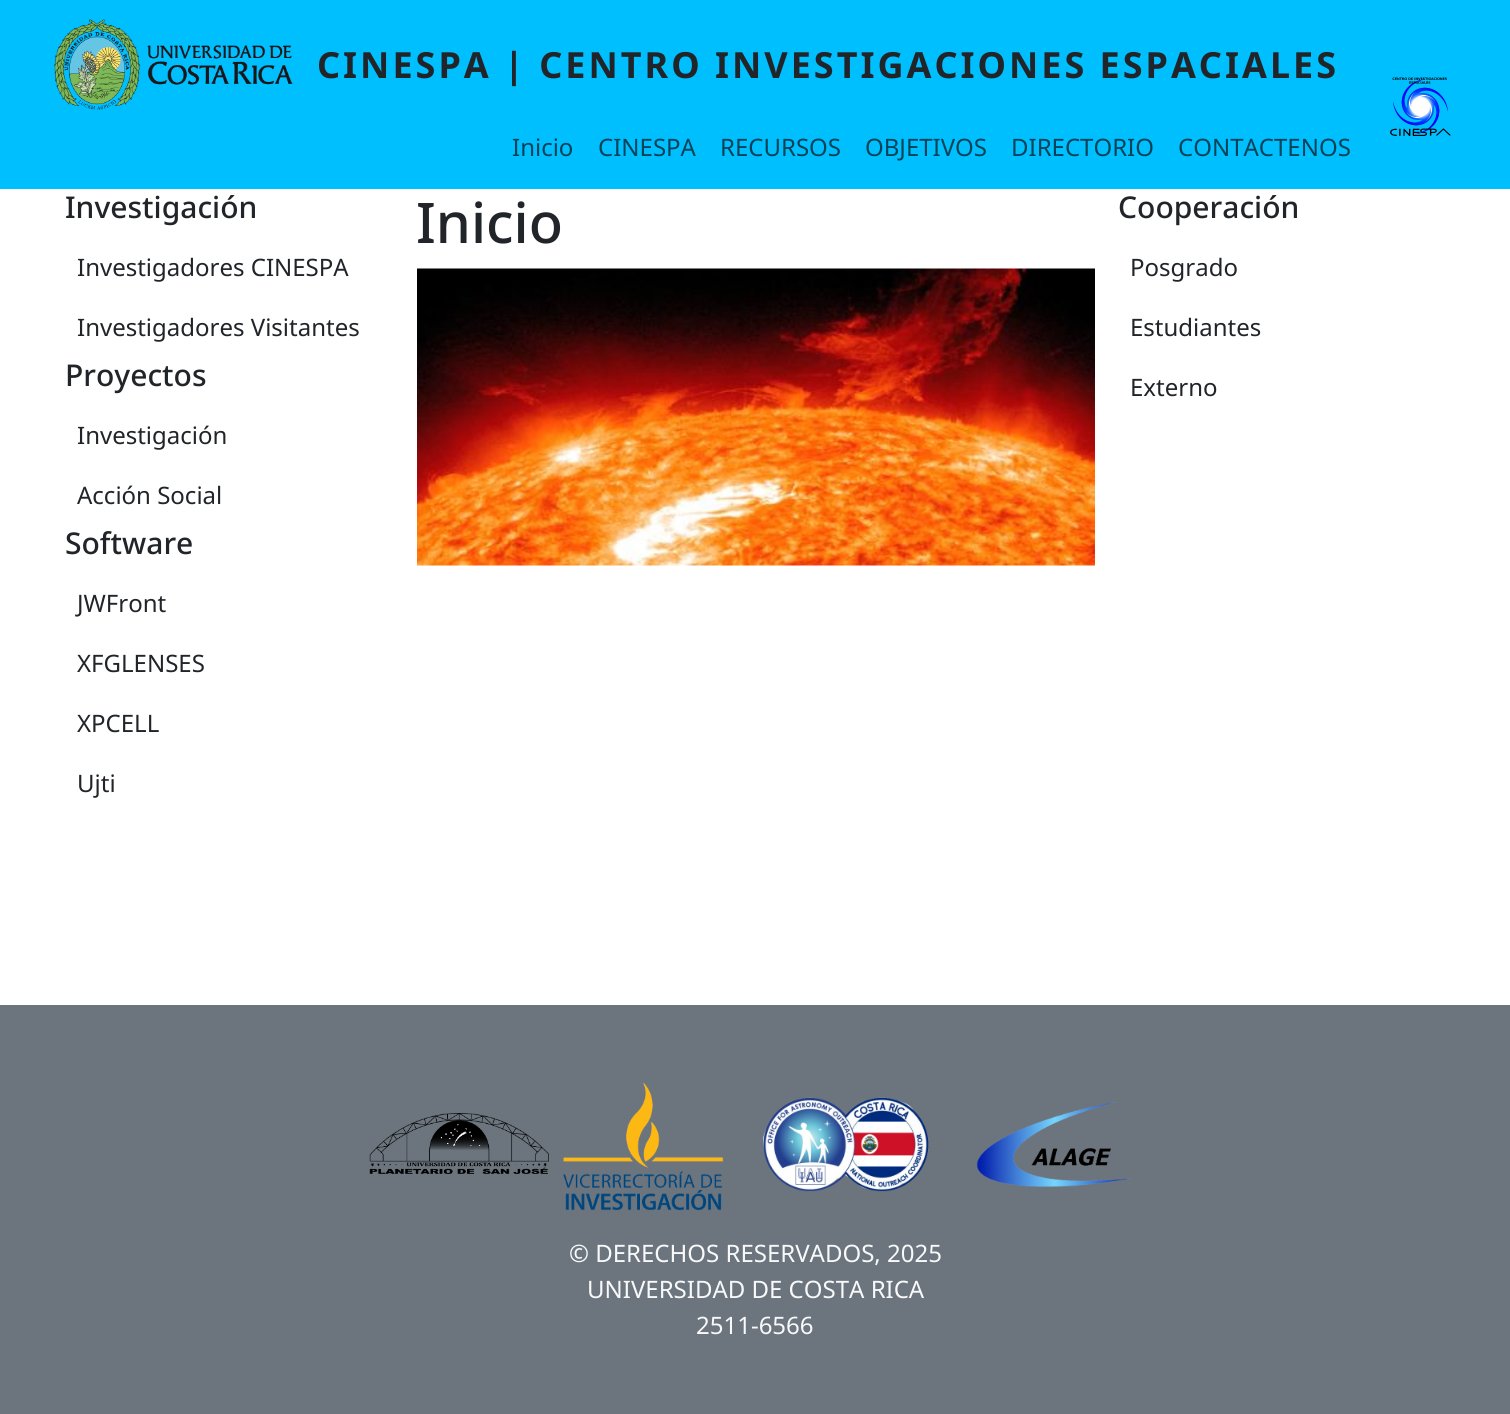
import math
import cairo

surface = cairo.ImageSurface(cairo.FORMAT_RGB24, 1510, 1414)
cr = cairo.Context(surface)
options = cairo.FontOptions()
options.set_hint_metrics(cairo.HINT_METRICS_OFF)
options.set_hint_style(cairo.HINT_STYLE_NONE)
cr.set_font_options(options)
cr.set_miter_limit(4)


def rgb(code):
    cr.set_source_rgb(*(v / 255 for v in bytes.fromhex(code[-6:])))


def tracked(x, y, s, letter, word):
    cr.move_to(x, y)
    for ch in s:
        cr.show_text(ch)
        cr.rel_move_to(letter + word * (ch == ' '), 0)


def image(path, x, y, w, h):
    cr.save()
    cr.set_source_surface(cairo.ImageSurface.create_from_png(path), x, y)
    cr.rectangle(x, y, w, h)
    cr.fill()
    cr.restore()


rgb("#ffffff")
cr.paint()
rgb("#00bfff")
cr.rectangle(0, 0, 1510, 189)
cr.fill()
image("img/1.png", 54, 19, 239, 91)
image("img/2.png", 1390, 77, 61, 59)
image("img/3.png", 417, 268, 678, 298)
rgb("#6c757d")
cr.rectangle(0, 1005, 1510, 409)
cr.fill()
image("img/4.png", 369, 1113, 180, 61)
image("img/5.png", 563, 1082, 161, 129)
image("img/6.png", 763, 1097, 166, 95)
image("img/7.png", 976, 1101, 155, 86)
cr.select_font_face("Noto Sans", cairo.FONT_SLANT_NORMAL, cairo.FONT_WEIGHT_BOLD)
cr.set_font_size(36)
rgb("#212529")
tracked(317, 78, "CINESPA | CENTRO INVESTIGACIONES ESPACIALES", 3, 0)
cr.select_font_face("Noto Sans")
cr.set_font_size(24)
rgb("#004359")
for x, y, s in [
    (512, 156, "Inicio"),
    (598, 156, "CINESPA"),
    (720, 156, "RECURSOS"),
    (865, 156, "OBJETIVOS"),
    (1011, 156, "DIRECTORIO"),
    (1178, 156, "CONTACTENOS"),
]:
    cr.move_to(x, y)
    cr.show_text(s)
cr.select_font_face("Noto Sans Medium")
cr.set_font_size(30)
rgb("#212529")
cr.move_to(65, 218)
cr.show_text("Investigación")
cr.select_font_face("Noto Sans")
cr.set_font_size(24)
cr.move_to(77, 276)
cr.show_text("Investigadores CINESPA")
cr.move_to(77, 336)
cr.show_text("Investigadores Visitantes")
cr.select_font_face("Noto Sans Medium")
cr.set_font_size(30)
cr.move_to(65, 386)
cr.show_text("Proyectos")
cr.select_font_face("Noto Sans")
cr.set_font_size(24)
cr.move_to(77, 444)
cr.show_text("Investigación")
cr.move_to(77, 504)
cr.show_text("Acción Social")
cr.select_font_face("Noto Sans Medium")
cr.set_font_size(30)
cr.move_to(65, 554)
cr.show_text("Software")
cr.select_font_face("Noto Sans")
cr.set_font_size(24)
for x, y, s in [
    (77, 612, "JWFront"),
    (77, 672, "XFGLENSES"),
    (77, 732, "XPCELL"),
    (77, 792, "Ujti"),
]:
    cr.move_to(x, y)
    cr.show_text(s)
cr.select_font_face("Noto Sans Medium")
cr.set_font_size(56)
cr.move_to(416, 243)
cr.show_text("Inicio")
cr.set_font_size(30)
cr.move_to(1118, 218)
cr.show_text("Cooperación")
cr.select_font_face("Noto Sans")
cr.set_font_size(24)
for x, y, s in [
    (1130, 276, "Posgrado"),
    (1130, 336, "Estudiantes"),
    (1130, 396, "Externo"),
]:
    cr.move_to(x, y)
    cr.show_text(s)
rgb("#f8f9fa")
for x, y, s in [
    (569, 1262, "© DERECHOS RESERVADOS, 2025"),
    (587, 1298, "UNIVERSIDAD DE COSTA RICA"),
    (696, 1334, "2511-6566"),
]:
    cr.move_to(x, y)
    cr.show_text(s)
surface.write_to_png("page.png")
